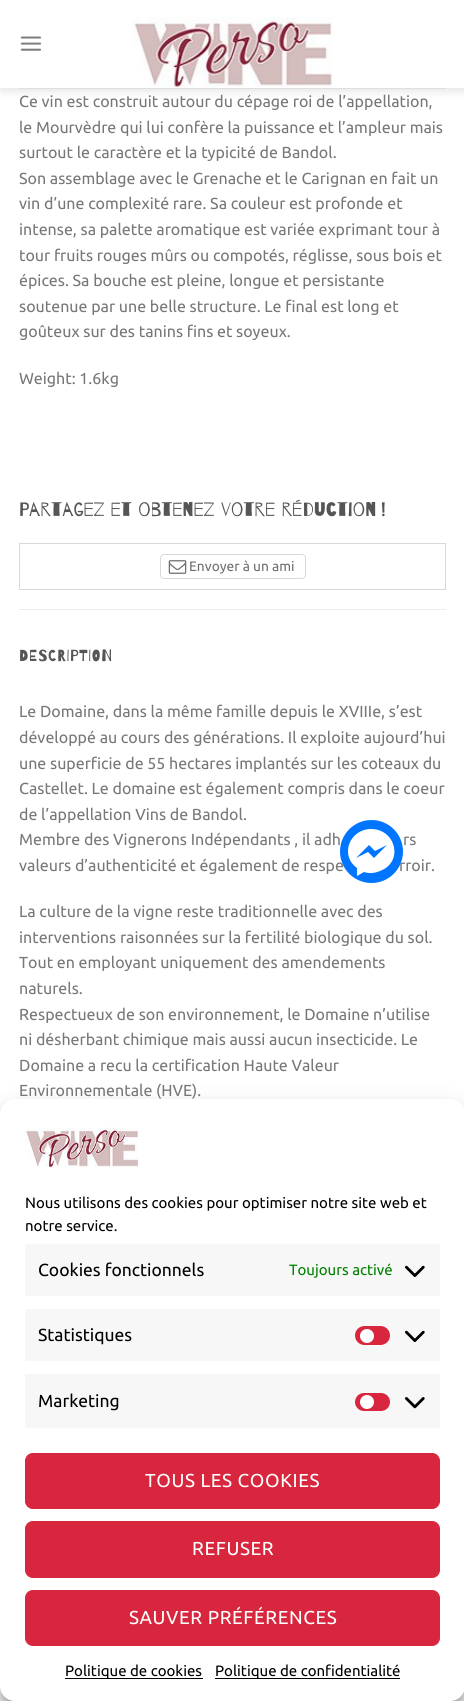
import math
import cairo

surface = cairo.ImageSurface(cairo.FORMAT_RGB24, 464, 1701)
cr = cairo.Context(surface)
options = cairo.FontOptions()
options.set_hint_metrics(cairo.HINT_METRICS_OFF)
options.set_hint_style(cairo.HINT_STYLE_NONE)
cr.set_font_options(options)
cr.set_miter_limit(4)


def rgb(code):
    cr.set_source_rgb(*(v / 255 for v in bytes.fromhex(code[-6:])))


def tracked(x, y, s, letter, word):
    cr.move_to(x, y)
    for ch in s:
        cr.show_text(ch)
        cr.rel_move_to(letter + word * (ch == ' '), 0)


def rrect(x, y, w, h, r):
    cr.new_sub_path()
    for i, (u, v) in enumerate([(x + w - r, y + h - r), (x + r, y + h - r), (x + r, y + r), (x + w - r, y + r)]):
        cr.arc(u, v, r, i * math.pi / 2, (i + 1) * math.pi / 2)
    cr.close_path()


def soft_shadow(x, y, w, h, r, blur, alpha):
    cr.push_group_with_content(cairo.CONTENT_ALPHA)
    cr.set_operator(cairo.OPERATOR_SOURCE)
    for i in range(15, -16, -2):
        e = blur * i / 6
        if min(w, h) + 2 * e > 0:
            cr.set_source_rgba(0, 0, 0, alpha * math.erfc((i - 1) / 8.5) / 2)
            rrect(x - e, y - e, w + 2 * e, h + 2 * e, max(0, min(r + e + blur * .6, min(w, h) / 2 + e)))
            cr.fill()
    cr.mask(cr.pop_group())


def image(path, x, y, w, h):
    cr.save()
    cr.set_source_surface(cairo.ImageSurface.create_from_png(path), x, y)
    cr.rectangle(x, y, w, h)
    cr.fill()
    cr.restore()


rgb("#ffffff")
cr.paint()
rgb("#000000")
soft_shadow(1, 1, 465, 88, 0, 6, 0.15)
rgb("#ffffff")
cr.rectangle(0, 0, 464, 88)
cr.fill()
image("img/1.png", 20, 36, 21, 15)
image("img/2.png", 132, 17, 201, 71)
rgb("#dfdfdf")
cr.rectangle(19, 88, 427, 1)
cr.fill()
cr.rectangle(19.5, 543.5, 426, 46)
rgb("#dbd8d8")
cr.set_line_width(1)
cr.stroke()
rrect(160.5, 554.5, 145, 24, 3.5)
cr.stroke()
image("img/3.png", 168, 560, 19, 14)
rgb("#ececec")
cr.rectangle(19, 609, 427, 1)
cr.fill()
rgb("#000000")
soft_shadow(0, 1106, 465, 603, 15, 4, 0.23)
soft_shadow(0, 1111, 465, 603, 15, 12.5, 0.19)
rgb("#ffffff")
rrect(0, 1099, 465, 602, 15)
cr.fill()
image("img/4.png", 25, 1127, 113, 41)
rgb("#f7f7f7")
cr.rectangle(25, 1244, 415, 52)
cr.fill()
image("img/5.png", 405, 1265, 20, 12)
cr.rectangle(25, 1309, 415, 52)
cr.fill()
rgb("#d7263d")
rrect(355, 1326, 35, 19, 9.5)
cr.fill()
rgb("#ffffff")
cr.arc(367, 1336, 7, 0, 2 * math.pi)
cr.fill()
image("img/5.png", 405, 1330, 20, 12)
rgb("#f7f7f7")
cr.rectangle(25, 1374, 415, 54)
cr.fill()
rgb("#d7263d")
rrect(355, 1393, 35, 18, 9)
cr.fill()
rgb("#ffffff")
cr.arc(367, 1402, 7, 0, 2 * math.pi)
cr.fill()
image("img/6.png", 405, 1397, 20, 12)
rgb("#d7263d")
rrect(25.5, 1453.5, 414, 55, 7.5)
cr.fill_preserve()
cr.stroke()
rrect(25.5, 1521.5, 414, 56, 7.5)
cr.fill_preserve()
cr.stroke()
rrect(25.5, 1590.5, 414, 55, 7.5)
cr.fill_preserve()
cr.stroke()
rgb("#000000")
cr.rectangle(65, 1678, 138, 1)
cr.fill()
cr.rectangle(215, 1678, 185, 1)
cr.fill()
cr.select_font_face("Ubuntu")
cr.set_font_size(16)
rgb("#777777")
for x, y, s in [
    (19, 107, "Ce vin est construit autour du cépage roi de l’appellation,"),
    (19, 133, "le Mourvèdre qui lui confère la puissance et l’ampleur mais"),
    (19, 158, "surtout le caractère et la typicité de Bandol."),
    (19, 184, "Son assemblage avec le Grenache et le Carignan en fait un"),
    (19, 209, "vin d’une complexité rare. Sa couleur est profonde et"),
    (19, 235, "intense, sa palette aromatique est variée exprimant tour à"),
    (19, 261, "tour fruits rouges mûrs ou compotés, réglisse, sous bois et"),
    (19, 286, "épices. Sa bouche est pleine, longue et persistante"),
    (19, 312, "soutenue par une belle structure. Le final est long et"),
    (19, 337, "goûteux sur des tanins fins et soyeux."),
    (19, 384, "Weight: 1.6kg"),
]:
    cr.move_to(x, y)
    cr.show_text(s)
cr.select_font_face("Barrio")
cr.set_font_size(19.25)
rgb("#555555")
tracked(19, 516, "Partagez et obtenez votre réduction", 0, 0.75)
tracked(381, 516, "!", 0, 0.75)
cr.select_font_face("Ubuntu")
cr.set_font_size(13.75)
rgb("#6e6e6e")
cr.move_to(189, 571)
cr.show_text("Envoyer à un ami")
cr.select_font_face("Barrio")
cr.set_font_size(16)
rgb("#555555")
tracked(19, 661, "DESCRIPTION", 0.75, 0)
cr.select_font_face("Ubuntu")
rgb("#777777")
for x, y, s in [
    (19, 717, "Le Domaine, dans la même famille depuis le XVIIIe, s’est"),
    (19, 743, "développé au cours des générations. Il exploite aujourd’hui"),
    (19, 769, "une superficie de 55 hectares implantés sur les coteaux du"),
    (19, 794, "Castellet. Le domaine est également compris dans le coeur"),
    (19, 820, "de l’appellation Vins de Bandol."),
    (19, 845, "Membre des Vignerons Indépendants , il adh"),
    (403, 845, "rs"),
    (19, 871, "valeurs d’authenticité et également de respe"),
    (399, 871, "rroir."),
    (19, 917, "La culture de la vigne reste traditionnelle avec des"),
    (19, 943, "interventions raisonnées sur la fertilité biologique du sol."),
    (19, 968, "Tout en employant uniquement des amendements"),
    (19, 994, "naturels."),
    (19, 1020, "Respectueux de son environnement, le Domaine n’utilise"),
    (19, 1045, "ni désherbant chimique mais aussi aucun insecticide. Le"),
    (19, 1071, "Domaine a recu la certification Haute Valeur"),
    (19, 1096, "Environnementale (HVE)."),
]:
    cr.move_to(x, y)
    cr.show_text(s)
rgb("#0075ff")
cr.new_path()
cr.arc(371.5, 851.5, 31.5, 0, 2 * math.pi)
cr.fill()
rgb("#ffffff")
cr.new_path()
cr.move_to(371, 829)
cr.curve_to(350, 829, 339, 855, 357, 868)
cr.line_to(357, 876)
cr.line_to(364, 872)
cr.curve_to(370, 874, 375, 873, 380, 871)
cr.curve_to(404, 862, 396, 829, 371, 829)
cr.close_path()
cr.move_to(374, 858)
cr.line_to(368, 852)
cr.line_to(356, 858)
cr.line_to(369, 845)
cr.line_to(375, 851)
cr.line_to(387, 845)
cr.close_path()
cr.fill()
cr.set_font_size(15)
rgb("#000000")
cr.move_to(25, 1208)
cr.show_text("Nous utilisons des cookies pour optimiser notre site web et")
cr.move_to(25, 1231)
cr.show_text("notre service.")
cr.set_font_size(17.5)
cr.move_to(38, 1276)
cr.show_text("Cookies fonctionnels")
cr.set_font_size(15)
rgb("#008000")
cr.move_to(289, 1275)
cr.show_text("Toujours activé")
cr.set_font_size(17.5)
rgb("#000000")
cr.move_to(38, 1341)
cr.show_text("Statistiques")
cr.move_to(38, 1407)
cr.show_text("Marketing")
cr.set_font_size(18.75)
rgb("#ffffff")
for x, y, s in [
    (145, 1487, "TOUS LES COOKIES"),
    (192, 1555, "REFUSER"),
    (129, 1624, "SAUVER PRÉFÉRENCES"),
]:
    tracked(x, y, s, 0.6, 0)
cr.set_font_size(15)
rgb("#000000")
cr.move_to(65, 1676)
cr.show_text("Politique de cookies")
cr.move_to(215, 1676)
cr.show_text("Politique de confidentialité")
surface.write_to_png("page.png")
